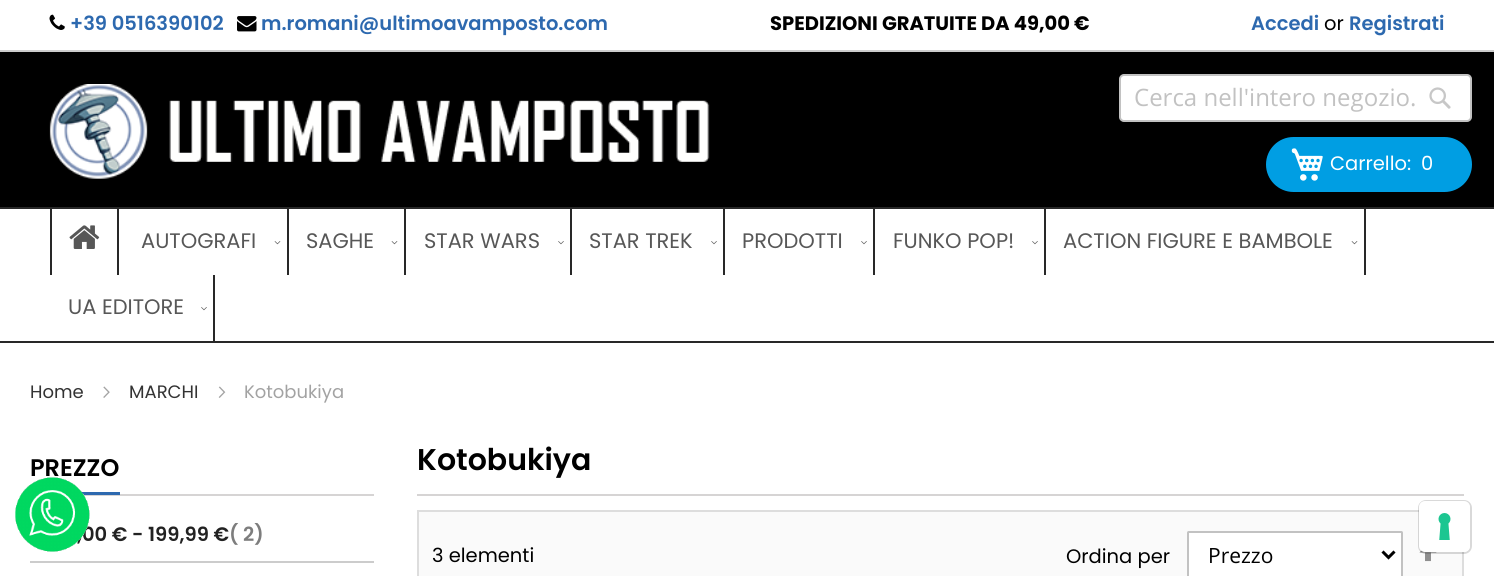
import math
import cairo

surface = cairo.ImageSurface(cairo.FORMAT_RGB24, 1494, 576)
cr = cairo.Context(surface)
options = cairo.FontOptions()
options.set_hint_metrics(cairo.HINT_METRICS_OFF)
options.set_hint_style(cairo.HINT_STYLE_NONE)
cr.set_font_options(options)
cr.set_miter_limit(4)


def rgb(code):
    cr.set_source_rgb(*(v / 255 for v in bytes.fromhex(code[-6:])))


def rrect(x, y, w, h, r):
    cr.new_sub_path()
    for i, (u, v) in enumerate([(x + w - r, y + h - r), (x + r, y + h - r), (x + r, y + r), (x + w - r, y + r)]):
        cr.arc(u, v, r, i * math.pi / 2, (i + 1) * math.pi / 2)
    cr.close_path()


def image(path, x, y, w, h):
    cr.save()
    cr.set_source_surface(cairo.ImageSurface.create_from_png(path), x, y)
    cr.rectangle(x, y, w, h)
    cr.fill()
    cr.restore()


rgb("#ffffff")
cr.paint()
rgb("#000000")
cr.rectangle(0, 52, 1494, 155)
cr.fill()
rgb("#cccccc")
cr.rectangle(0, 50, 1494, 2)
cr.fill()
image("img/1.png", 49, 14, 16, 16)
image("img/2.png", 237, 16, 20, 16)
image("img/3.png", 49, 84, 661, 95)
rgb("#ffffff")
rrect(1120, 75, 351, 46, 4)
cr.fill_preserve()
rgb("#c2c2c2")
cr.stroke()
image("img/4.png", 1429, 87, 22, 22)
rgb("#009ee3")
rrect(1266, 137, 206, 55, 27.5)
cr.fill()
image("img/5.png", 1291, 148, 32, 33)
for x, y, w, h, color in [
    (0, 207, 1494, 2, "#282828"),
    (0, 341, 1494, 2, "#282828"),
    (117, 209, 2, 66, "#282828"),
    (50, 209, 2, 66, "#282828"),
]:
    rgb(color)
    cr.rectangle(x, y, w, h)
    cr.fill()
image("img/6.png", 69, 225, 31, 24)
cr.rectangle(287, 209, 2, 66)
cr.fill()
image("img/7.png", 274, 241, 7, 4)
cr.rectangle(404, 209, 2, 66)
cr.fill()
image("img/7.png", 391, 241, 7, 4)
cr.rectangle(570, 209, 2, 66)
cr.fill()
image("img/8.png", 558, 241, 6, 4)
cr.rectangle(723, 209, 2, 66)
cr.fill()
image("img/8.png", 711, 241, 6, 4)
cr.rectangle(873, 209, 2, 66)
cr.fill()
image("img/8.png", 861, 241, 6, 4)
cr.rectangle(1044, 209, 2, 66)
cr.fill()
image("img/8.png", 1032, 241, 6, 4)
cr.rectangle(1364, 209, 2, 66)
cr.fill()
image("img/7.png", 1351, 241, 7, 4)
cr.rectangle(213, 275, 2, 66)
cr.fill()
image("img/8.png", 201, 307, 6, 4)
image("img/9.png", 103, 386, 7, 12)
image("img/10.png", 218, 386, 8, 12)
for x, y, w, h, color in [
    (84, 494, 290, 2, "#d6d4d4"),
    (82, 492, 38, 3, "#2d69af"),
    (30, 561, 344, 2, "#cccccc"),
    (417, 494, 1047, 2, "#d6d4d4"),
]:
    rgb(color)
    cr.rectangle(x, y, w, h)
    cr.fill()
rgb("#fafafa")
cr.rectangle(418, 511, 1045, 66)
cr.fill_preserve()
rgb("#dddddd")
cr.stroke()
rgb("#ffffff")
cr.rectangle(1189, 533, 212, 43)
cr.fill()
rrect(1188, 532, 214, 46, 0.5)
rgb("#c2c2c2")
cr.stroke()
cr.new_path()
cr.move_to(1382.5, 551.5)
cr.line_to(1388.5, 557.5)
cr.line_to(1394.5, 551.5)
rgb("#000000")
cr.set_line_width(3)
cr.stroke()
image("img/11.png", 1419, 550, 18, 12)
rrect(1419, 501, 52, 52, 7)
cr.set_source_rgba(0, 0, 0, 0.15)
cr.set_line_width(2)
cr.stroke()
rgb("#ffffff")
rrect(1419, 501, 51, 51, 6)
cr.fill()
image("img/13.png", 1438, 513, 13, 27)
cr.select_font_face("Poppins SemiBold")
cr.set_font_size(19.5)
rgb("#2d69af")
cr.move_to(70, 30)
cr.show_text("+39 0516390102")
cr.move_to(261, 30)
cr.show_text("m.romani@ultimoavamposto.com")
cr.select_font_face("Poppins", cairo.FONT_SLANT_NORMAL, cairo.FONT_WEIGHT_BOLD)
rgb("#000000")
cr.move_to(770, 30)
cr.show_text("SPEDIZIONI GRATUITE DA 49,00 €")
cr.select_font_face("Poppins SemiBold")
rgb("#2d69af")
cr.move_to(1251, 30)
cr.show_text("Accedi")
cr.select_font_face("Poppins")
rgb("#000000")
cr.move_to(1324, 30)
cr.show_text("or")
cr.select_font_face("Poppins SemiBold")
rgb("#2d69af")
cr.move_to(1349, 30)
cr.show_text("Registrati")
cr.select_font_face("Open Sans")
cr.set_font_size(24)
rgb("#c2c2c2")
cr.move_to(1134, 106)
cr.show_text("Cerca nell'intero negozio.")
cr.select_font_face("Poppins")
cr.set_font_size(19.5)
rgb("#ffffff")
cr.move_to(1330, 170)
cr.show_text("Carrello:")
cr.move_to(1421, 170)
cr.show_text("0")
cr.set_font_size(21)
rgb("#575757")
for x, y, s in [
    (141, 248, "AUTOGRAFI"),
    (306, 248, "SAGHE"),
    (424, 248, "STAR WARS"),
    (589, 248, "STAR TREK"),
    (742, 248, "PRODOTTI"),
    (893, 248, "FUNKO POP!"),
    (1063, 248, "ACTION FIGURE E BAMBOLE"),
    (68, 314, "UA EDITORE"),
]:
    cr.move_to(x, y)
    cr.show_text(s)
cr.set_font_size(18)
rgb("#333333")
cr.move_to(30, 398)
cr.show_text("Home")
cr.move_to(129, 398)
cr.show_text("MARCHI")
rgb("#a3a3a3")
cr.move_to(244, 398)
cr.show_text("Kotobukiya")
cr.select_font_face("Poppins SemiBold")
cr.set_font_size(24)
rgb("#000000")
cr.move_to(30, 476)
cr.show_text("PREZZO")
cr.set_font_size(19.5)
rgb("#222222")
cr.move_to(77, 541)
cr.show_text(",00 € - 199,99 €")
rgb("#7d7d7d")
cr.move_to(229, 541)
cr.show_text("( 2)")
cr.set_font_size(30)
rgb("#000000")
cr.move_to(417, 470)
cr.show_text("Kotobukiya")
cr.select_font_face("Poppins")
cr.set_font_size(19.5)
cr.move_to(432, 562)
cr.show_text("3 elementi")
cr.move_to(1066, 563)
cr.show_text("Ordina per")
cr.select_font_face("Open Sans")
cr.set_font_size(21)
cr.move_to(1208, 563)
cr.show_text("Prezzo")
image("img/12.png", 15, 477, 75, 75)
surface.write_to_png("page.png")
